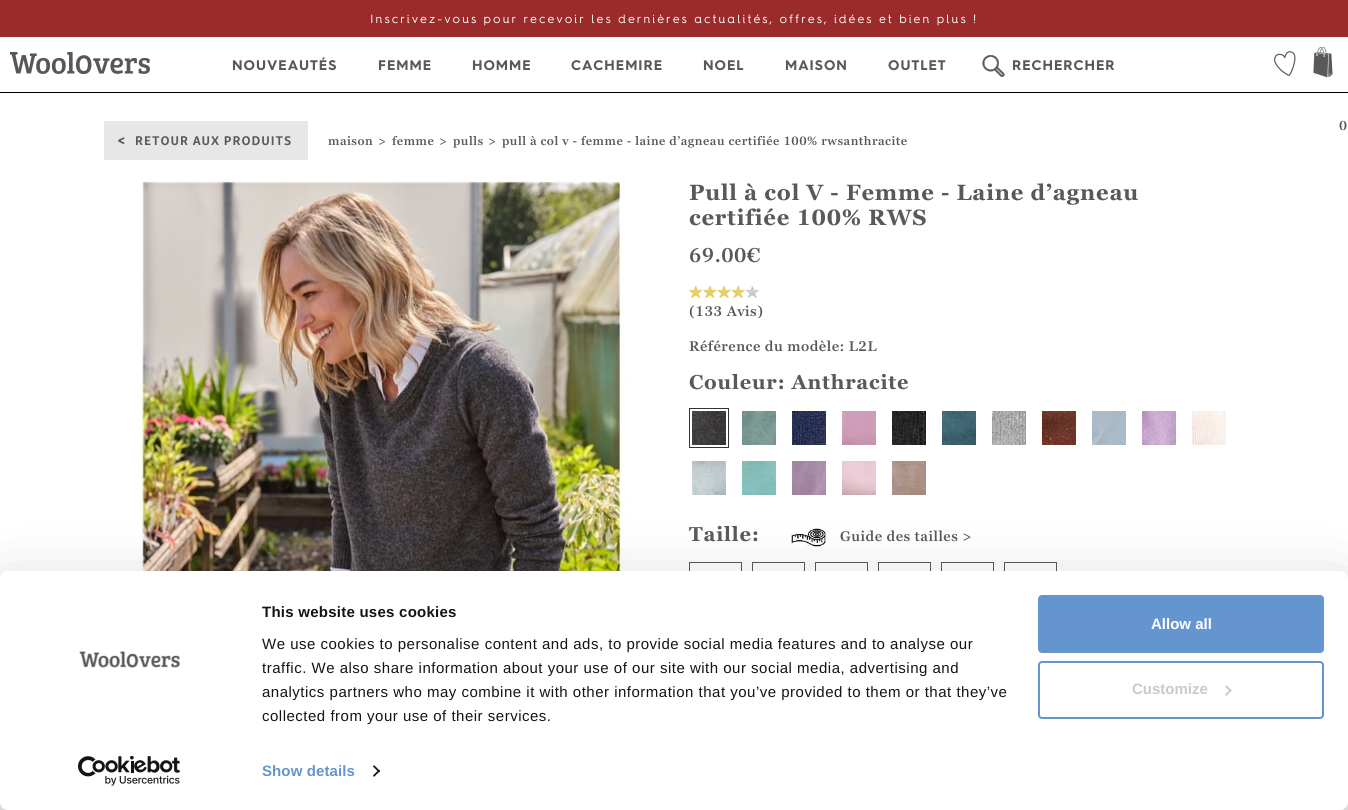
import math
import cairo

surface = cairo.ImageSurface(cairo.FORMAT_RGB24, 1348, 810)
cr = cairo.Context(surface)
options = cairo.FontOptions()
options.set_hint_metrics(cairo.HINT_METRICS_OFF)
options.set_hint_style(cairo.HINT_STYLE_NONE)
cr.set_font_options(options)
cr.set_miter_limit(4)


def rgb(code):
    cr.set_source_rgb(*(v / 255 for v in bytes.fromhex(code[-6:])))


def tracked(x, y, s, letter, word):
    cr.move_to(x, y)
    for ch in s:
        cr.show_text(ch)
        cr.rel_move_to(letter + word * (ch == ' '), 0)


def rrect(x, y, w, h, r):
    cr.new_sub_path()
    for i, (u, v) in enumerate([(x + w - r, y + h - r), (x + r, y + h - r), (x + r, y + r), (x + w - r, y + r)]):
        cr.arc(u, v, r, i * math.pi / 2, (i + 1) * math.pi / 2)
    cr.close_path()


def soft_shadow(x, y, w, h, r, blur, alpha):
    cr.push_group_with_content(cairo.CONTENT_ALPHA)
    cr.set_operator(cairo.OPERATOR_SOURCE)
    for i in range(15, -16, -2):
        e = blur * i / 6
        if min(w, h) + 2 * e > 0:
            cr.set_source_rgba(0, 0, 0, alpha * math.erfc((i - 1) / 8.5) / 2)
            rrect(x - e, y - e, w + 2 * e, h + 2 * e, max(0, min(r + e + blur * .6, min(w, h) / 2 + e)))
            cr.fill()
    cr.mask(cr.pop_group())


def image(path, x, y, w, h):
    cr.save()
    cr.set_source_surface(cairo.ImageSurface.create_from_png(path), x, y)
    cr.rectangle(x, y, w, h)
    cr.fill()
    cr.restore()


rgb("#ffffff")
cr.paint()
rgb("#9b2b2b")
cr.rectangle(0, 0, 1348, 37)
cr.fill()
image("img/1.png", 10, 52, 140, 22)
rgb("#000000")
cr.rectangle(0, 92, 1348, 1)
cr.fill()
image("img/2.png", 982, 54, 23, 23)
image("img/3.png", 1274, 51, 22, 25)
image("img/4.png", 1313, 47, 20, 31)
rgb("#e7e7e7")
cr.rectangle(104, 121, 204, 39)
cr.fill()
image("img/5.png", 140, 181, 487, 390)
image("img/6.png", 689, 285, 70, 13)
cr.rectangle(689.5, 408.5, 39, 39)
rgb("#333333")
cr.set_line_width(1)
cr.stroke()
image("img/7.png", 692, 411, 34, 34)
image("img/8.png", 742, 411, 34, 34)
image("img/9.png", 792, 411, 34, 34)
image("img/10.png", 842, 411, 34, 34)
image("img/11.png", 892, 411, 34, 34)
image("img/12.png", 942, 411, 34, 34)
image("img/13.png", 992, 411, 34, 34)
image("img/14.png", 1042, 411, 34, 34)
image("img/15.png", 1092, 411, 34, 34)
image("img/16.png", 1142, 411, 34, 34)
image("img/17.png", 1192, 411, 34, 34)
image("img/18.png", 692, 461, 34, 34)
image("img/19.png", 742, 461, 34, 34)
image("img/20.png", 792, 461, 34, 34)
image("img/21.png", 842, 461, 34, 34)
image("img/22.png", 892, 461, 34, 34)
image("img/23.png", 791, 528, 35, 19)
cr.rectangle(689.5, 562.5, 52, 52)
rgb("#595959")
cr.stroke()
cr.rectangle(752.5, 562.5, 52, 52)
cr.stroke()
cr.rectangle(815.5, 562.5, 52, 52)
cr.stroke()
cr.rectangle(878.5, 562.5, 52, 52)
cr.stroke()
cr.rectangle(941.5, 562.5, 52, 52)
cr.stroke()
cr.rectangle(1004.5, 562.5, 52, 52)
cr.stroke()
rgb("#000000")
soft_shadow(0, 601, 1348, 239, 8, 35, 0.3)
rgb("#ffffff")
rrect(0, 571, 1348, 239, 8)
cr.fill()
image("img/24.png", 79, 651, 102, 17)
image("img/25.png", 78, 756, 102, 30)
rgb("#141414")
cr.new_path()
cr.move_to(374, 765)
cr.line_to(380, 771)
cr.line_to(379, 772.5)
cr.line_to(373, 766.5)
cr.close_path()
cr.fill()
cr.new_path()
cr.move_to(379, 769.5)
cr.line_to(380, 771)
cr.line_to(374, 777)
cr.line_to(373, 775.5)
cr.close_path()
cr.fill()
rgb("#6495cf")
rrect(1039, 596, 284, 56, 3)
cr.fill_preserve()
cr.set_line_width(2)
cr.stroke()
rrect(1039, 662, 284, 56, 3)
cr.stroke()
rgb("#c9c9c9")
cr.new_path()
cr.move_to(1226.5, 685)
cr.line_to(1231.5, 690.5)
cr.line_to(1230.5, 692)
cr.line_to(1225, 686.5)
cr.close_path()
cr.fill()
cr.new_path()
cr.move_to(1230.5, 689)
cr.line_to(1231.5, 690.5)
cr.line_to(1226.5, 696)
cr.line_to(1225, 694.5)
cr.close_path()
cr.fill()
cr.select_font_face("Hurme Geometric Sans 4")
cr.set_font_size(12)
rgb("#ffffff")
tracked(370, 23, "Inscrivez-vous pour recevoir les dernières actualités, offres, idées et bien plus !", 2, 0)
cr.select_font_face("Hurme Geometric Sans 4", cairo.FONT_SLANT_NORMAL, cairo.FONT_WEIGHT_BOLD)
cr.set_font_size(14)
rgb("#595959")
for x, y, s in [
    (232, 70, "NOUVEAUTÉS"),
    (378, 70, "FEMME"),
    (472, 70, "HOMME"),
    (571, 70, "CACHEMIRE"),
    (703, 70, "NOEL"),
    (785, 70, "MAISON"),
    (888, 70, "OUTLET"),
    (1012, 70, "RECHERCHER"),
]:
    tracked(x, y, s, 1, 0)
cr.select_font_face("Georgia SemiBold")
cr.set_font_size(13)
tracked(1339, 130, "0", 0.5, 0)
cr.select_font_face("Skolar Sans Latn", cairo.FONT_SLANT_NORMAL, cairo.FONT_WEIGHT_BOLD)
cr.set_font_size(16)
tracked(117, 145, "<", 1, 0)
cr.set_font_size(13)
tracked(135, 145, "RETOUR AUX PRODUITS", 1, 0)
cr.select_font_face("Georgia SemiBold")
cr.set_font_size(12)
for x, y, s in [
    (328, 145, "maison"),
    (378, 145, ">"),
    (392, 145, "femme"),
    (439, 145, ">"),
    (453, 145, "pulls"),
    (488, 145, ">"),
    (502, 145, "pull à col v - femme - laine d’agneau certifiée 100% rwsanthracite"),
]:
    tracked(x, y, s, 0.5, 0)
cr.select_font_face("Georgia", cairo.FONT_SLANT_NORMAL, cairo.FONT_WEIGHT_BOLD)
cr.set_font_size(22)
tracked(689, 200, "Pull à col V - Femme - Laine d’agneau", 0.8, 0)
tracked(689, 225, "certifiée 100% RWS", 0.8, 0)
cr.select_font_face("Georgia SemiBold")
cr.set_font_size(20)
tracked(689, 262, "69.00€", 0.5, 0)
cr.set_font_size(14)
tracked(689, 316, "(133 Avis)", 0.5, 0)
tracked(689, 351, "Référence du modèle: L2L", 0.5, 0)
cr.select_font_face("Georgia", cairo.FONT_SLANT_NORMAL, cairo.FONT_WEIGHT_BOLD)
cr.set_font_size(20)
tracked(689, 389, "Couleur: Anthracite", 0.8, 0)
tracked(689, 541, "Taille:", 0.8, 0)
cr.select_font_face("Georgia SemiBold")
cr.set_font_size(14)
tracked(840, 541, "Guide des tailles >", 0.5, 0)
cr.select_font_face("Liberation Sans", cairo.FONT_SLANT_NORMAL, cairo.FONT_WEIGHT_BOLD)
cr.set_font_size(15)
rgb("#141414")
tracked(262, 617, "This website uses cookies", 0.25, 0)
cr.select_font_face("Liberation Sans")
for x, y, s in [
    (262, 649, "We use cookies to personalise content and ads, to provide social media features and to analyse our"),
    (262, 673, "traffic. We also share information about your use of our site with our social media, advertising and"),
    (262, 697, "analytics partners who may combine it with other information that you’ve provided to them or that they’ve"),
    (262, 721, "collected from your use of their services."),
]:
    tracked(x, y, s, 0.5, 0)
cr.select_font_face("Liberation Sans", cairo.FONT_SLANT_NORMAL, cairo.FONT_WEIGHT_BOLD)
rgb("#6495cf")
tracked(262, 776, "Show details", 0.1, 0)
rgb("#ffffff")
cr.move_to(1151, 629)
cr.show_text("Allow all")
rgb("#c9c9c9")
cr.move_to(1132, 694)
cr.show_text("Customize")
surface.write_to_png("page.png")
